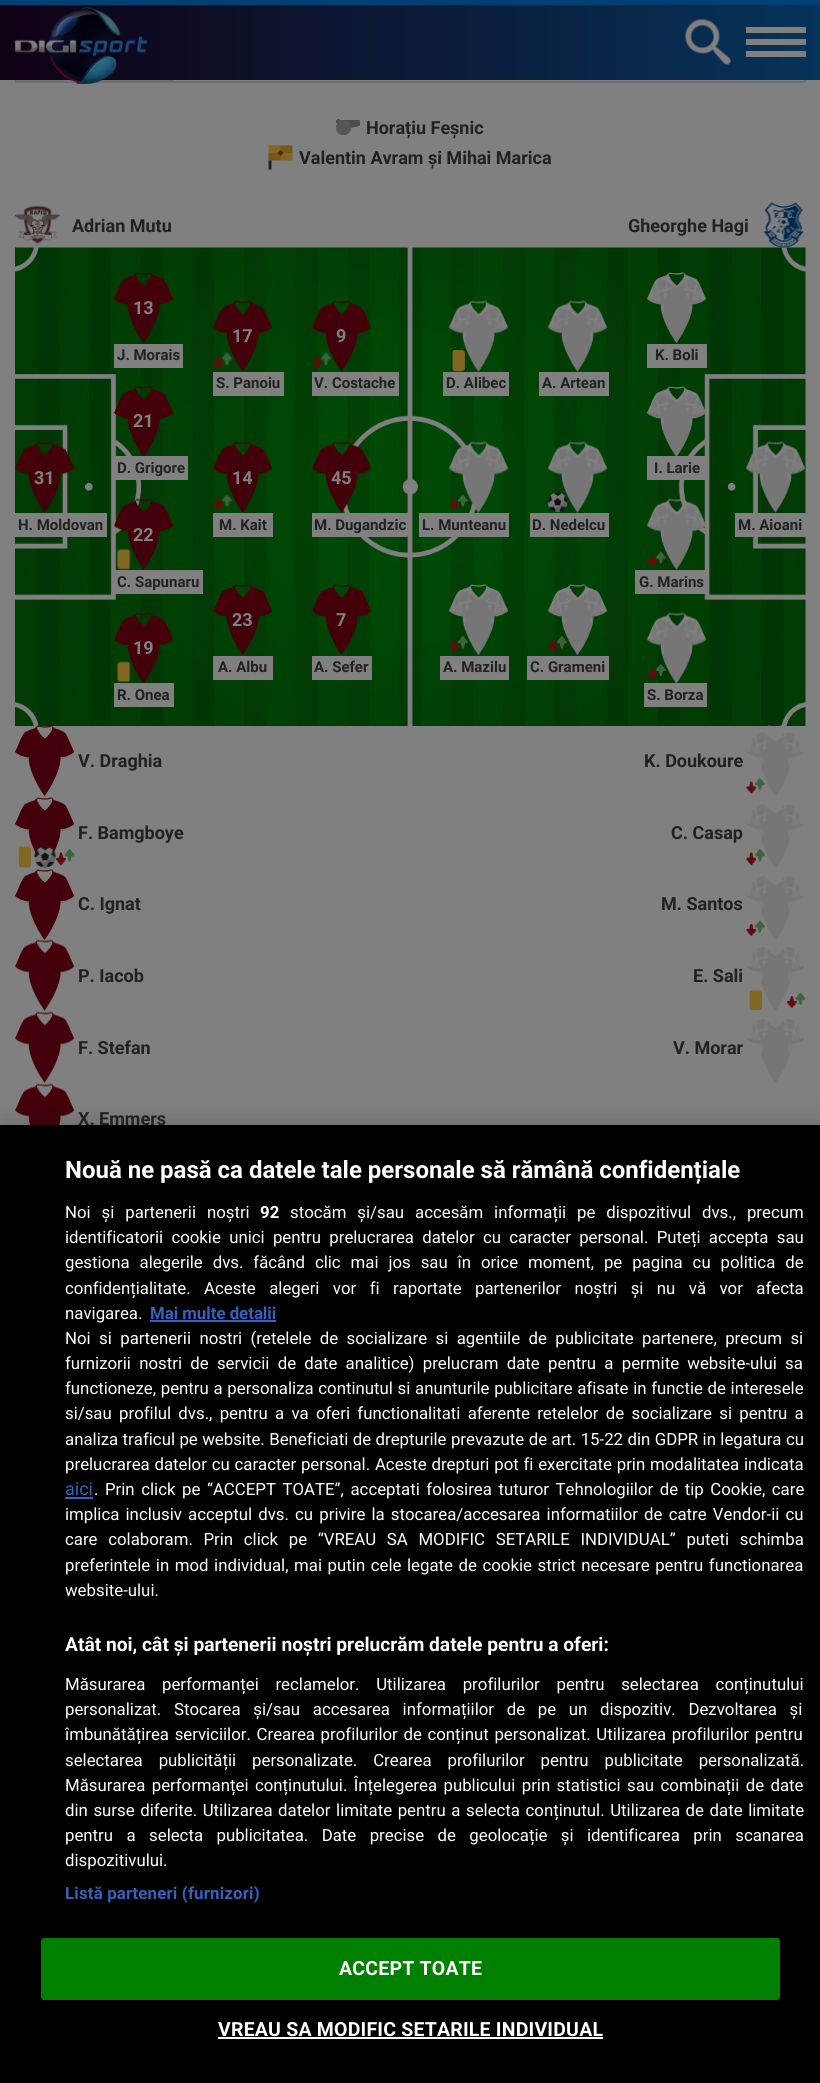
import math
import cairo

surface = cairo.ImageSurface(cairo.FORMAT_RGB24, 820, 2083)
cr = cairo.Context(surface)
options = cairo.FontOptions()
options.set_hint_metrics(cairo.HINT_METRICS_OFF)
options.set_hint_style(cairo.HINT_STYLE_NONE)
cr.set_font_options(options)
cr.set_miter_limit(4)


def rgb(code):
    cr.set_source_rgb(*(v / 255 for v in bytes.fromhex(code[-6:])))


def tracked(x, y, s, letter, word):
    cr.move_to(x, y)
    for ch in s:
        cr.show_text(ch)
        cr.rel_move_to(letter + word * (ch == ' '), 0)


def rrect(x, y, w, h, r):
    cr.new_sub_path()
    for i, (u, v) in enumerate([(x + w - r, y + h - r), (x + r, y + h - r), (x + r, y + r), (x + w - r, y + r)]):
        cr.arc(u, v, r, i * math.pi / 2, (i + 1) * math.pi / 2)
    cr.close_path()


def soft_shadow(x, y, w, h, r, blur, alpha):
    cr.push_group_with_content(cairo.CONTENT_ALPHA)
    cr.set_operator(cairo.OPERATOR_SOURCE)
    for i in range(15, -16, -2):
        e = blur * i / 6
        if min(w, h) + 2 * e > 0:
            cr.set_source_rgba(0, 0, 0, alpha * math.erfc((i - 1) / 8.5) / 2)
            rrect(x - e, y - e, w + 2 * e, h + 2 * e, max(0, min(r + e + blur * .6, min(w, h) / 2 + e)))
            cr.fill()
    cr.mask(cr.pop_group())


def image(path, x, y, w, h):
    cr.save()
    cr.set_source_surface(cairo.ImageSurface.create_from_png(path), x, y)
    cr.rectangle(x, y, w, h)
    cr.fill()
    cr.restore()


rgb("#808080")
cr.paint()
cr.rectangle(16, -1, 789, 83)
rgb("#6f6f6f")
cr.stroke()
rgb("#004175")
cr.rectangle(0, 0, 820, 5)
cr.fill()
gradient = cairo.LinearGradient(0, 42, 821, 42)
gradient.add_color_stop_rgba(0, 0.063, 0.004, 0.082, 1)
gradient.add_color_stop_rgba(1, 0.024, 0.2, 0.353, 1)
cr.set_source(gradient)
cr.rectangle(0, 5, 820, 75)
cr.fill()
rgb("#6f6f6f")
cr.rectangle(17, 80, 157, 1)
cr.fill()
image("img/1.png", 15, 7, 132, 77)
image("img/2.png", 685, 19, 46, 46)
for x, y, w, h, color in [
    (746, 27, 60, 6, "#808080"),
    (746, 39, 60, 6, "#808080"),
    (746, 51, 60, 6, "#808080"),
]:
    rgb(color)
    cr.rectangle(x, y, w, h)
    cr.fill()
image("img/4.png", 336, 119, 24, 16)
image("img/3.png", 336, 119, 24, 16)
image("img/5.png", 268, 145, 25, 25)
image("img/6.png", 15, 206, 45, 38)
image("img/60.png", 15, 247, 791, 479)
image("img/7.png", 114, 272, 60, 72)
cr.rectangle(114, 344, 69, 24)
cr.fill()
image("img/8.png", 213, 300, 60, 72)
image("img/9.png", 213, 351, 20, 19)
cr.rectangle(213, 372, 71, 24)
cr.fill()
image("img/10.png", 312, 300, 59, 72)
image("img/11.png", 312, 351, 20, 19)
cr.rectangle(312, 372, 87, 24)
cr.fill()
image("img/12.png", 114, 386, 60, 70)
cr.rectangle(115, 456, 73, 24)
cr.fill()
image("img/13.png", 15, 441, 60, 72)
cr.rectangle(15, 513, 92, 24)
cr.fill()
image("img/14.png", 213, 441, 60, 72)
image("img/15.png", 213, 494, 20, 17)
cr.rectangle(213, 513, 60, 24)
cr.fill()
image("img/16.png", 312, 441, 59, 72)
cr.rectangle(312, 513, 96, 24)
cr.fill()
image("img/17.png", 114, 498, 60, 72)
image("img/18.png", 117, 549, 14, 21)
cr.rectangle(115, 570, 88, 24)
cr.fill()
image("img/19.png", 114, 612, 60, 71)
image("img/20.png", 117, 661, 14, 21)
cr.rectangle(114, 683, 60, 24)
cr.fill()
image("img/21.png", 213, 584, 60, 72)
cr.rectangle(213, 656, 60, 24)
cr.fill()
image("img/22.png", 312, 584, 59, 72)
cr.rectangle(312, 656, 60, 24)
cr.fill()
image("img/23.png", 15, 725, 60, 72)
image("img/24.png", 15, 797, 60, 72)
image("img/25.png", 18, 846, 13, 22)
image("img/26.png", 34, 846, 22, 22)
image("img/27.png", 56, 848, 19, 18)
image("img/28.png", 15, 869, 60, 71)
image("img/29.png", 15, 939, 60, 72)
image("img/30.png", 15, 1011, 60, 72)
image("img/31.png", 15, 1083, 60, 42)
image("img/32.png", 763, 202, 41, 46)
image("img/33.png", 646, 272, 61, 72)
cr.rectangle(647, 344, 60, 24)
cr.fill()
image("img/34.png", 448, 300, 61, 72)
image("img/35.png", 452, 350, 13, 22)
cr.rectangle(443, 372, 66, 24)
cr.fill()
image("img/36.png", 547, 300, 61, 72)
cr.rectangle(539, 372, 70, 24)
cr.fill()
image("img/37.png", 646, 386, 59, 70)
cr.rectangle(647, 456, 58, 24)
cr.fill()
image("img/38.png", 448, 441, 61, 72)
image("img/39.png", 449, 494, 19, 17)
cr.rectangle(419, 513, 90, 24)
cr.fill()
image("img/40.png", 547, 441, 61, 72)
image("img/41.png", 547, 492, 21, 21)
cr.rectangle(530, 513, 79, 24)
cr.fill()
image("img/42.png", 745, 441, 61, 72)
cr.rectangle(735, 513, 71, 24)
cr.fill()
image("img/43.png", 646, 498, 59, 72)
image("img/44.png", 647, 551, 19, 17)
cr.rectangle(635, 570, 70, 24)
cr.fill()
image("img/45.png", 448, 584, 61, 72)
image("img/46.png", 449, 635, 19, 18)
cr.rectangle(440, 656, 69, 24)
cr.fill()
image("img/47.png", 547, 584, 61, 72)
image("img/48.png", 548, 635, 19, 18)
cr.rectangle(527, 656, 82, 24)
cr.fill()
image("img/49.png", 646, 612, 61, 71)
image("img/50.png", 647, 664, 19, 16)
cr.rectangle(644, 683, 63, 24)
cr.fill()
image("img/51.png", 747, 725, 58, 71)
image("img/52.png", 746, 777, 19, 17)
image("img/53.png", 747, 804, 58, 64)
image("img/54.png", 746, 848, 19, 18)
image("img/55.png", 746, 876, 58, 64)
image("img/56.png", 746, 920, 19, 17)
image("img/57.png", 747, 947, 57, 64)
image("img/58.png", 749, 990, 13, 21)
image("img/59.png", 786, 992, 20, 17)
image("img/57.png", 747, 1019, 57, 64)
rgb("#000000")
soft_shadow(0, 1125, 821, 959, 0, 13.5, 0.2)
cr.select_font_face("Roboto", cairo.FONT_SLANT_NORMAL, cairo.FONT_WEIGHT_BOLD)
cr.set_font_size(18)
rgb("#212121")
for x, y, s in [
    (366, 134, "Horațiu Feșnic"),
    (299, 164, "Valentin Avram și Mihai Marica"),
    (72, 232, "Adrian Mutu"),
]:
    cr.move_to(x, y)
    cr.show_text(s)
rgb("#808080")
cr.move_to(133, 314)
cr.show_text("13")
cr.set_font_size(15)
rgb("#212121")
cr.move_to(117, 360)
cr.show_text("J. Morais")
cr.set_font_size(18)
rgb("#808080")
cr.move_to(232, 342)
cr.show_text("17")
cr.set_font_size(15)
rgb("#212121")
cr.move_to(216, 388)
cr.show_text("S. Panoiu")
cr.set_font_size(18)
rgb("#808080")
cr.move_to(336, 342)
cr.show_text("9")
cr.set_font_size(15)
rgb("#212121")
cr.move_to(314, 388)
cr.show_text("V. Costache")
cr.set_font_size(18)
rgb("#808080")
cr.move_to(133, 427)
cr.show_text("21")
cr.set_font_size(15)
rgb("#212121")
cr.move_to(117, 473)
cr.show_text("D. Grigore")
cr.set_font_size(18)
rgb("#808080")
cr.move_to(34, 484)
cr.show_text("31")
cr.set_font_size(15)
rgb("#212121")
cr.move_to(18, 530)
cr.show_text("H. Moldovan")
cr.set_font_size(18)
rgb("#808080")
cr.move_to(232, 484)
cr.show_text("14")
cr.set_font_size(15)
rgb("#212121")
cr.move_to(219, 530)
cr.show_text("M. Kait")
cr.set_font_size(18)
rgb("#808080")
cr.move_to(331, 484)
cr.show_text("45")
cr.set_font_size(15)
rgb("#212121")
cr.move_to(314, 530)
cr.show_text("M. Dugandzic")
cr.set_font_size(18)
rgb("#808080")
cr.move_to(133, 541)
cr.show_text("22")
cr.set_font_size(15)
rgb("#212121")
cr.move_to(117, 587)
cr.show_text("C. Sapunaru")
cr.set_font_size(18)
rgb("#808080")
cr.move_to(133, 654)
cr.show_text("19")
cr.set_font_size(15)
rgb("#212121")
cr.move_to(117, 700)
cr.show_text("R. Onea")
cr.set_font_size(18)
rgb("#808080")
cr.move_to(232, 626)
cr.show_text("23")
cr.set_font_size(15)
rgb("#212121")
cr.move_to(218, 672)
cr.show_text("A. Albu")
cr.set_font_size(18)
rgb("#808080")
cr.move_to(336, 626)
cr.show_text("7")
cr.set_font_size(15)
rgb("#212121")
cr.move_to(314, 672)
cr.show_text("A. Sefer")
cr.set_font_size(18)
for x, y, s in [
    (78, 767, "V. Draghia"),
    (78, 839, "F. Bamgboye"),
    (78, 910, "C. Ignat"),
    (78, 982, "P. Iacob"),
    (78, 1054, "F. Stefan"),
    (78, 1125, "X. Emmers"),
    (628, 232, "Gheorghe Hagi"),
]:
    cr.move_to(x, y)
    cr.show_text(s)
cr.set_font_size(15)
for x, y, s in [
    (655, 360, "K. Boli"),
    (446, 388, "D. Alibec"),
    (542, 388, "A. Artean"),
    (654, 473, "I. Larie"),
    (422, 530, "L. Munteanu"),
    (532, 530, "D. Nedelcu"),
    (738, 530, "M. Aioani"),
    (639, 587, "G. Marins"),
    (443, 672, "A. Mazilu"),
    (530, 672, "C. Grameni"),
    (647, 700, "S. Borza"),
]:
    cr.move_to(x, y)
    cr.show_text(s)
cr.set_font_size(18)
for x, y, s in [
    (644, 767, "K. Doukoure"),
    (671, 839, "C. Casap"),
    (661, 910, "M. Santos"),
    (693, 982, "E. Sali"),
    (673, 1054, "V. Morar"),
]:
    cr.move_to(x, y)
    cr.show_text(s)
rgb("#000000")
cr.rectangle(0, 1125, 820, 958)
cr.fill()
cr.set_font_size(24)
rgb("#ffffff")
cr.move_to(65, 1178)
cr.show_text("Nouă ne pasă ca datele tale personale să rămână confidențiale")
cr.select_font_face("Roboto")
cr.set_font_size(16.8)
tracked(65, 1218, "Noi și partenerii noștri", 0, 6.75)
cr.select_font_face("Roboto", cairo.FONT_SLANT_NORMAL, cairo.FONT_WEIGHT_BOLD)
cr.move_to(260, 1218)
cr.show_text("92")
cr.select_font_face("Roboto")
tracked(290, 1218, "stocăm și/sau accesăm informații pe dispozitivul dvs., precum", 0, 6.75)
tracked(65, 1243, "identificatorii cookie unici pentru prelucrarea datelor cu caracter personal. Puteți accepta sau", 0, 4.1)
tracked(65, 1268, "gestiona alegerile dvs. făcând clic mai jos sau în orice moment, pe pagina cu politica de", 0, 5.75)
tracked(65, 1294, "confidențialitate. Aceste alegeri vor fi raportate partenerilor noștri și nu vă vor afecta", 0, 9.25)
cr.move_to(65, 1319)
cr.show_text("navigarea.")
cr.select_font_face("Roboto", cairo.FONT_SLANT_NORMAL, cairo.FONT_WEIGHT_BOLD)
rgb("#3860be")
cr.move_to(150, 1319)
cr.show_text("Mai multe detalii")
cr.rectangle(150, 1320, 126, 2)
cr.fill()
cr.select_font_face("Roboto")
rgb("#ffffff")
tracked(65, 1344, "Noi si partenerii nostri (retelele de socializare si agentiile de publicitate partenere, precum si", 0, 4.25)
tracked(65, 1369, "furnizorii nostri de servicii de date analitice) prelucram date pentru a permite website-ului sa", 0, 4.1)
tracked(65, 1394, "functioneze, pentru a personaliza continutul si anunturile publicitare afisate in functie de interesele", 0, 0.5)
tracked(65, 1419, "si/sau profilul dvs., pentru a va oferi functionalitati aferente retelelor de socializare si pentru a", 0, 3.1)
tracked(65, 1445, "analiza traficul pe website. Beneficiati de drepturile prevazute de art. 15-22 din GDPR in legatura cu", 0, 0.25)
tracked(65, 1470, "prelucrarea datelor cu caracter personal. Aceste drepturi pot fi exercitate prin modalitatea indicata", 0, 0.6)
cr.set_font_size(18)
rgb("#3860be")
cr.move_to(65, 1495)
cr.show_text("aici")
cr.rectangle(65, 1497, 28, 2)
cr.fill()
cr.set_font_size(16.8)
rgb("#ffffff")
tracked(94, 1495, ". Prin click pe “ACCEPT TOATE”, acceptati folosirea tuturor Tehnologiilor de tip Cookie, care", 0, 2.4)
tracked(65, 1520, "implica inclusiv acceptul dvs. cu privire la stocarea/accesarea informatiilor de catre Vendor-ii cu", 0, 2)
tracked(65, 1545, "care colaboram. Prin click pe “VREAU SA MODIFIC SETARILE INDIVIDUAL” puteti schimba", 0, 6.5)
tracked(65, 1571, "preferintele in mod individual, mai putin cele legate de cookie strict necesare pentru functionarea", 0, 1.4)
cr.move_to(65, 1596)
cr.show_text("website-ului.")
cr.select_font_face("Roboto", cairo.FONT_SLANT_NORMAL, cairo.FONT_WEIGHT_BOLD)
cr.set_font_size(19.2)
cr.move_to(65, 1651)
cr.show_text("Atât noi, cât și partenerii noștri prelucrăm datele pentru a oferi:")
cr.select_font_face("Roboto")
cr.set_font_size(16.8)
tracked(65, 1690, "Măsurarea performanței reclamelor. Utilizarea profilurilor pentru selectarea conținutului", 0, 12.5)
tracked(65, 1715, "personalizat. Stocarea și/sau accesarea informațiilor de pe un dispozitiv. Dezvoltarea și", 0, 8.5)
tracked(65, 1740, "îmbunătățirea serviciilor. Crearea profilurilor de conținut personalizat. Utilizarea profilurilor pentru", 0, 1.5)
tracked(65, 1766, "selectarea publicității personalizate. Crearea profilurilor pentru publicitate personalizată.", 0, 11.75)
tracked(65, 1791, "Măsurarea performanței conținutului. Înțelegerea publicului prin statistici sau combinații de date", 0, 2.25)
tracked(65, 1816, "din surse diferite. Utilizarea datelor limitate pentru a selecta conținutul. Utilizarea de date limitate", 0, 1.4)
tracked(65, 1841, "pentru a selecta publicitatea. Date precise de geolocație și identificarea prin scanarea", 0, 9.25)
cr.move_to(65, 1866)
cr.show_text("dispozitivului.")
cr.select_font_face("Roboto", cairo.FONT_SLANT_NORMAL, cairo.FONT_WEIGHT_BOLD)
rgb("#3860be")
tracked(65, 1899, "Listă parteneri (furnizori)", 0.2, 0)
rgb("#008000")
rrect(42, 1939, 737, 60, 2)
cr.fill_preserve()
cr.stroke()
cr.set_font_size(19.5)
rgb("#ffffff")
tracked(339, 1975, "ACCEPT TOATE", 0.2, 0)
tracked(218, 2036, "VREAU SA MODIFIC SETARILE INDIVIDUAL", 0.2, 0)
cr.rectangle(218, 2037, 385, 2)
cr.fill()
surface.write_to_png("page.png")
